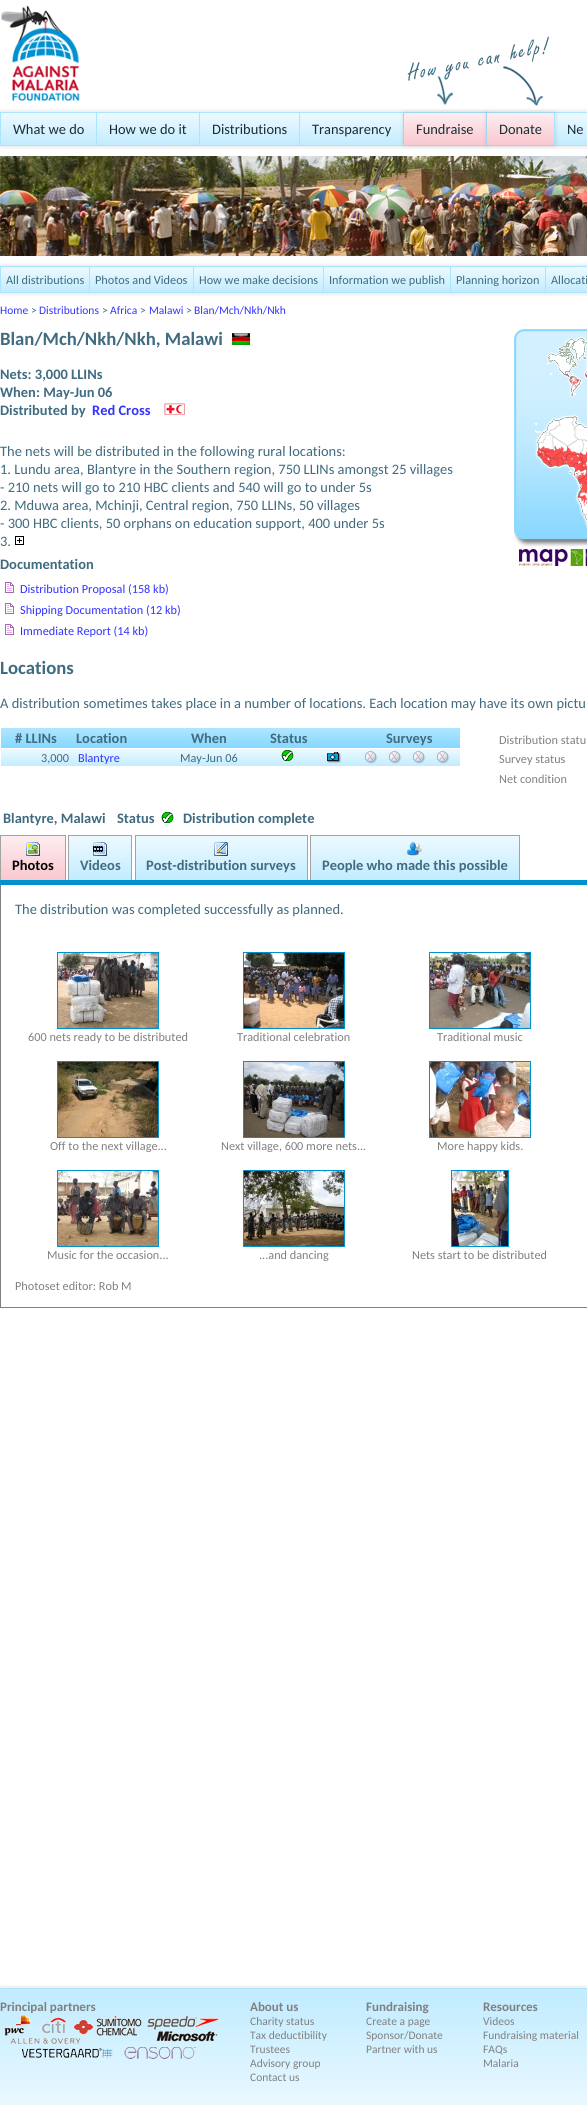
import math
import cairo

surface = cairo.ImageSurface(cairo.FORMAT_RGB24, 587, 2105)
cr = cairo.Context(surface)
options = cairo.FontOptions()
options.set_hint_metrics(cairo.HINT_METRICS_OFF)
options.set_hint_style(cairo.HINT_STYLE_NONE)
cr.set_font_options(options)
cr.set_miter_limit(4)


def rgb(code):
    cr.set_source_rgb(*(v / 255 for v in bytes.fromhex(code[-6:])))


def rrect(x, y, w, h, r):
    cr.new_sub_path()
    for i, (u, v) in enumerate([(x + w - r, y + h - r), (x + r, y + h - r), (x + r, y + r), (x + w - r, y + r)]):
        cr.arc(u, v, r, i * math.pi / 2, (i + 1) * math.pi / 2)
    cr.close_path()


def soft_shadow(x, y, w, h, r, blur, alpha):
    cr.push_group_with_content(cairo.CONTENT_ALPHA)
    cr.set_operator(cairo.OPERATOR_SOURCE)
    for i in range(15, -16, -2):
        e = blur * i / 6
        if min(w, h) + 2 * e > 0:
            cr.set_source_rgba(0, 0, 0, alpha * math.erfc((i - 1) / 8.5) / 2)
            rrect(x - e, y - e, w + 2 * e, h + 2 * e, max(0, min(r + e + blur * .6, min(w, h) / 2 + e)))
            cr.fill()
    cr.mask(cr.pop_group())


def image(path, x, y, w, h):
    cr.save()
    cr.set_source_surface(cairo.ImageSurface.create_from_png(path), x, y)
    cr.rectangle(x, y, w, h)
    cr.fill()
    cr.restore()


rgb("#ffffff")
cr.paint()
image("img/1.png", 1, 5, 79, 96)
rgb("#000000")
soft_shadow(0, 112, 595, 34, 0, 2.5, 0.15)
gradient = cairo.LinearGradient(1, 113, 1, 145)
gradient.add_color_stop_rgba(0.05, 0.922, 0.976, 1, 1)
gradient.add_color_stop_rgba(1, 0.761, 0.925, 1, 1)
cr.set_source(gradient)
cr.rectangle(1, 113, 586, 32)
cr.fill()
cr.rectangle(0.5, 112.5, 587, 33)
rgb("#abe4ff")
cr.set_line_width(1)
cr.stroke()
cr.rectangle(403, 113, 1, 32)
cr.fill()
rgb("#000000")
soft_shadow(404, 113, 83, 32, 0, 2.5, 0.15)
gradient = cairo.LinearGradient(404, 113, 404, 145)
gradient.add_color_stop_rgba(0.05, 0.992, 0.925, 0.937, 1)
gradient.add_color_stop_rgba(1, 0.98, 0.78, 0.812, 1)
cr.set_source(gradient)
cr.rectangle(404, 113, 82, 32)
cr.fill()
rgb("#abe4ff")
cr.rectangle(486, 113, 1, 32)
cr.fill()
rgb("#000000")
soft_shadow(487, 113, 68, 32, 0, 2.5, 0.15)
image("img/2.png", 407, 36, 142, 70)
for x, y, w, h, color in [
    (96, 113, 1, 32, "#abe4ff"),
    (199, 113, 1, 32, "#abe4ff"),
    (299, 113, 1, 32, "#abe4ff"),
]:
    rgb(color)
    cr.rectangle(x, y, w, h)
    cr.fill()
gradient = cairo.LinearGradient(487, 113, 487, 145)
gradient.add_color_stop_rgba(0.05, 0.992, 0.925, 0.937, 1)
gradient.add_color_stop_rgba(1, 0.98, 0.78, 0.812, 1)
cr.set_source(gradient)
cr.rectangle(487, 113, 67, 32)
cr.fill()
rgb("#abe4ff")
cr.rectangle(554, 113, 1, 32)
cr.fill()
image("img/3.png", 0, 156, 587, 100)
rgb("#000000")
soft_shadow(0, 266, 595, 27, 0, 2.5, 0.15)
gradient = cairo.LinearGradient(1, 267, 1, 292)
gradient.add_color_stop_rgba(0.05, 0.922, 0.976, 1, 1)
gradient.add_color_stop_rgba(1, 0.761, 0.925, 1, 1)
cr.set_source(gradient)
cr.rectangle(1, 267, 586, 25)
cr.fill()
cr.rectangle(0.5, 266.5, 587, 26)
rgb("#abe4ff")
cr.stroke()
for x, y, w, h, color in [
    (89, 267, 1, 25, "#abe4ff"),
    (193, 267, 1, 25, "#abe4ff"),
    (323, 267, 1, 25, "#abe4ff"),
    (450, 267, 1, 25, "#abe4ff"),
    (545, 267, 1, 25, "#abe4ff"),
]:
    rgb(color)
    cr.rectangle(x, y, w, h)
    cr.fill()
image("img/4.png", 232, 333, 18, 12)
image("img/5.png", 164, 403, 21, 12)
image("img/6.png", 15, 536, 9, 9)
image("img/7.png", 5, 582, 9, 11)
image("img/7.png", 5, 603, 9, 11)
image("img/7.png", 5, 624, 9, 11)
image("img/8.png", 514, 329, 73, 218)
image("img/9.png", 519, 549, 68, 17)
gradient = cairo.LinearGradient(1, 728, 1, 748)
gradient.add_color_stop_rgba(0.05, 0.678, 0.898, 1, 1)
gradient.add_color_stop_rgba(1, 0.522, 0.847, 1, 1)
cr.set_source(gradient)
cr.rectangle(1, 728, 459, 20)
cr.fill()
gradient = cairo.LinearGradient(1, 749, 1, 766)
gradient.add_color_stop_rgba(0.05, 0.922, 0.976, 1, 1)
gradient.add_color_stop_rgba(1, 0.761, 0.925, 1, 1)
cr.set_source(gradient)
cr.rectangle(1, 749, 459, 17)
cr.fill()
image("img/10.png", 281, 750, 13, 11)
image("img/11.png", 327, 752, 14, 11)
image("img/12.png", 364, 751, 14, 13)
image("img/12.png", 388, 751, 14, 13)
image("img/12.png", 412, 751, 14, 13)
image("img/12.png", 436, 751, 14, 13)
image("img/13.png", 161, 812, 13, 11)
rgb("#0092ce")
cr.rectangle(0, 880, 587, 5)
cr.fill()
gradient = cairo.LinearGradient(1, 836, 1, 880)
gradient.add_color_stop_rgba(0.05, 0.992, 0.925, 0.937, 1)
gradient.add_color_stop_rgba(1, 0.98, 0.78, 0.812, 1)
cr.set_source(gradient)
cr.rectangle(1, 836, 64, 44)
cr.fill()
for x, y, w, h, color in [
    (0, 835, 66, 1, "#a3a3a3"),
    (65, 835, 1, 45, "#a3a3a3"),
    (0, 835, 1, 45, "#a3a3a3"),
]:
    rgb(color)
    cr.rectangle(x, y, w, h)
    cr.fill()
image("img/14.png", 26, 842, 14, 14)
gradient = cairo.LinearGradient(69, 836, 69, 880)
gradient.add_color_stop_rgba(0.05, 0.922, 0.976, 1, 1)
gradient.add_color_stop_rgba(1, 0.761, 0.925, 1, 1)
cr.set_source(gradient)
cr.rectangle(69, 836, 62, 44)
cr.fill()
for x, y, w, h, color in [
    (68, 835, 64, 1, "#a3a3a3"),
    (131, 835, 1, 45, "#a3a3a3"),
    (68, 835, 1, 45, "#a3a3a3"),
]:
    rgb(color)
    cr.rectangle(x, y, w, h)
    cr.fill()
image("img/15.png", 93, 842, 14, 14)
gradient = cairo.LinearGradient(136, 836, 136, 880)
gradient.add_color_stop_rgba(0.05, 0.922, 0.976, 1, 1)
gradient.add_color_stop_rgba(1, 0.761, 0.925, 1, 1)
cr.set_source(gradient)
cr.rectangle(136, 836, 171, 44)
cr.fill()
for x, y, w, h, color in [
    (135, 835, 173, 1, "#a3a3a3"),
    (307, 835, 1, 45, "#a3a3a3"),
    (135, 835, 1, 45, "#a3a3a3"),
]:
    rgb(color)
    cr.rectangle(x, y, w, h)
    cr.fill()
image("img/16.png", 214, 842, 14, 14)
gradient = cairo.LinearGradient(311, 836, 311, 880)
gradient.add_color_stop_rgba(0.05, 0.922, 0.976, 1, 1)
gradient.add_color_stop_rgba(1, 0.761, 0.925, 1, 1)
cr.set_source(gradient)
cr.rectangle(311, 836, 208, 44)
cr.fill()
for x, y, w, h, color in [
    (310, 835, 210, 1, "#a3a3a3"),
    (519, 835, 1, 45, "#a3a3a3"),
    (310, 835, 1, 45, "#a3a3a3"),
]:
    rgb(color)
    cr.rectangle(x, y, w, h)
    cr.fill()
image("img/17.png", 407, 842, 15, 14)
rgb("#808080")
cr.rectangle(0, 1307, 587, 1)
cr.fill()
cr.rectangle(0, 885, 1, 423)
cr.fill()
cr.rectangle(57.5, 952.5, 101, 76)
rgb("#0092ce")
cr.stroke()
image("img/18.png", 58, 953, 100, 75)
cr.rectangle(243.5, 952.5, 101, 76)
cr.stroke()
image("img/19.png", 244, 953, 100, 75)
cr.rectangle(429.5, 952.5, 101, 76)
cr.stroke()
image("img/20.png", 430, 953, 100, 75)
cr.rectangle(57.5, 1061.5, 101, 76)
cr.stroke()
image("img/21.png", 58, 1062, 100, 75)
cr.rectangle(243.5, 1061.5, 101, 76)
cr.stroke()
image("img/22.png", 244, 1062, 100, 75)
cr.rectangle(429.5, 1061.5, 101, 76)
cr.stroke()
image("img/23.png", 430, 1062, 100, 75)
cr.rectangle(57.5, 1170.5, 101, 76)
cr.stroke()
image("img/24.png", 58, 1171, 100, 75)
cr.rectangle(243.5, 1170.5, 101, 76)
cr.stroke()
image("img/25.png", 244, 1171, 100, 75)
cr.rectangle(451.5, 1170.5, 57, 76)
cr.stroke()
image("img/26.png", 452, 1171, 56, 75)
rgb("#000000")
soft_shadow(0, 1988, 587, 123, 0, 2.5, 0.15)
gradient = cairo.LinearGradient(0, 1989, 0, 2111)
gradient.add_color_stop_rgba(0.05, 0.761, 0.925, 1, 1)
gradient.add_color_stop_rgba(1, 0.922, 0.976, 1, 1)
cr.set_source(gradient)
cr.rectangle(0, 1989, 587, 116)
cr.fill()
rgb("#abe4ff")
cr.rectangle(0, 1988, 587, 1)
cr.fill()
image("img/27.png", 4, 2015, 215, 44)
cr.select_font_face("Carlito")
cr.set_font_size(14.45)
rgb("#1b2d36")
for x, y, s in [
    (13, 134, "What we do"),
    (109, 134, "How we do it"),
    (212, 134, "Distributions"),
    (312, 134, "Transparency"),
    (416, 134, "Fundraise"),
    (499, 134, "Donate"),
    (567, 134, "Ne"),
]:
    cr.move_to(x, y)
    cr.show_text(s)
cr.set_font_size(12.25)
rgb("#406b80")
for x, y, s in [
    (6, 284, "All distributions"),
    (95, 284, "Photos and Videos"),
    (199, 284, "How we make decisions"),
    (329, 284, "Information we publish"),
    (456, 284, "Planning horizon"),
    (551, 284, "Allocati"),
]:
    cr.move_to(x, y)
    cr.show_text(s)
cr.set_font_size(11.5)
rgb("#3333ff")
cr.move_to(0, 314)
cr.show_text("Home")
rgb("#406b80")
cr.move_to(31, 314)
cr.show_text(">")
rgb("#3333ff")
cr.move_to(39, 314)
cr.show_text("Distributions")
rgb("#406b80")
cr.move_to(102, 314)
cr.show_text(">")
rgb("#3333ff")
cr.move_to(110, 314)
cr.show_text("Africa")
rgb("#406b80")
cr.move_to(140, 314)
cr.show_text(">")
rgb("#3333ff")
cr.move_to(149, 314)
cr.show_text("Malawi")
rgb("#406b80")
cr.move_to(186, 314)
cr.show_text(">")
rgb("#3333ff")
cr.move_to(194, 314)
cr.show_text("Blan/Mch/Nkh/Nkh")
cr.select_font_face("Carlito", cairo.FONT_SLANT_NORMAL, cairo.FONT_WEIGHT_BOLD)
cr.set_font_size(18.75)
rgb("#406b80")
cr.move_to(0, 345)
cr.show_text("Blan/Mch/Nkh/Nkh, Malawi")
cr.set_font_size(14.45)
for x, y, s in [
    (0, 379, "Nets: 3,000 LLINs"),
    (0, 397, "When: May-Jun 06"),
    (0, 415, "Distributed by"),
]:
    cr.move_to(x, y)
    cr.show_text(s)
rgb("#3333ff")
cr.move_to(92, 415)
cr.show_text("Red Cross")
cr.select_font_face("Carlito")
rgb("#406b80")
for x, y, s in [
    (0, 456, "The nets will be distributed in the following rural locations:"),
    (0, 474, "1. Lundu area, Blantyre in the Southern region, 750 LLINs amongst 25 villages"),
    (0, 492, "- 210 nets will go to 210 HBC clients and 540 will go to under 5s"),
    (0, 510, "2. Mduwa area, Mchinji, Central region, 750 LLINs, 50 villages"),
    (0, 528, "- 300 HBC clients, 50 orphans on education support, 400 under 5s"),
    (0, 546, "3."),
]:
    cr.move_to(x, y)
    cr.show_text(s)
cr.select_font_face("Carlito", cairo.FONT_SLANT_NORMAL, cairo.FONT_WEIGHT_BOLD)
cr.move_to(0, 569)
cr.show_text("Documentation")
cr.select_font_face("Carlito")
cr.set_font_size(12.25)
rgb("#3333ff")
for x, y, s in [
    (20, 593, "Distribution Proposal (158 kb)"),
    (20, 614, "Shipping Documentation (12 kb)"),
    (20, 635, "Immediate Report (14 kb)"),
]:
    cr.move_to(x, y)
    cr.show_text(s)
cr.select_font_face("Carlito", cairo.FONT_SLANT_NORMAL, cairo.FONT_WEIGHT_BOLD)
cr.set_font_size(18.75)
rgb("#406b80")
cr.move_to(0, 674)
cr.show_text("Locations")
cr.select_font_face("Carlito")
cr.set_font_size(14.45)
cr.move_to(0, 708)
cr.show_text("A distribution sometimes takes place in a number of locations. Each location may have its own pictu")
cr.select_font_face("Carlito", cairo.FONT_SLANT_NORMAL, cairo.FONT_WEIGHT_BOLD)
for x, y, s in [
    (15, 743, "# LLINs"),
    (76, 743, "Location"),
    (191, 743, "When"),
    (270, 743, "Status"),
    (386, 743, "Surveys"),
]:
    cr.move_to(x, y)
    cr.show_text(s)
cr.select_font_face("Carlito")
cr.set_font_size(12.25)
cr.move_to(41, 762)
cr.show_text("3,000")
rgb("#3333ff")
cr.move_to(78, 762)
cr.show_text("Blantyre")
rgb("#406b80")
cr.move_to(180, 762)
cr.show_text("May-Jun 06")
rgb("#808080")
for x, y, s in [
    (499, 744, "Distribution statu"),
    (499, 763, "Survey status"),
    (499, 783, "Net condition"),
]:
    cr.move_to(x, y)
    cr.show_text(s)
cr.select_font_face("Carlito", cairo.FONT_SLANT_NORMAL, cairo.FONT_WEIGHT_BOLD)
cr.set_font_size(14.45)
rgb("#406b80")
for x, y, s in [
    (3, 823, "Blantyre, Malawi"),
    (117, 823, "Status"),
    (183, 823, "Distribution complete"),
]:
    cr.move_to(x, y)
    cr.show_text(s)
rgb("#000000")
cr.move_to(12, 870)
cr.show_text("Photos")
rgb("#406b80")
for x, y, s in [
    (80, 870, "Videos"),
    (146, 870, "Post-distribution surveys"),
    (322, 870, "People who made this possible"),
]:
    cr.move_to(x, y)
    cr.show_text(s)
cr.select_font_face("Carlito")
cr.move_to(15, 914)
cr.show_text("The distribution was completed successfully as planned.")
cr.set_font_size(12.25)
rgb("#808080")
for x, y, s in [
    (28, 1041, "600 nets ready to be distributed"),
    (237, 1041, "Traditional celebration"),
    (437, 1041, "Traditional music"),
    (50, 1150, "Off to the next village..."),
    (221, 1150, "Next village, 600 more nets..."),
    (437, 1150, "More happy kids."),
    (47, 1259, "Music for the occasion..."),
    (259, 1259, "...and dancing"),
    (412, 1259, "Nets start to be distributed"),
    (15, 1290, "Photoset editor: Rob M"),
]:
    cr.move_to(x, y)
    cr.show_text(s)
cr.select_font_face("Carlito", cairo.FONT_SLANT_NORMAL, cairo.FONT_WEIGHT_BOLD)
cr.set_font_size(13)
for x, y, s in [
    (0, 2011, "Principal partners"),
    (250, 2011, "About us"),
    (366, 2011, "Fundraising"),
    (483, 2011, "Resources"),
]:
    cr.move_to(x, y)
    cr.show_text(s)
cr.select_font_face("Carlito")
cr.set_font_size(11.5)
for x, y, s in [
    (250, 2025, "Charity status"),
    (250, 2039, "Tax deductibility"),
    (250, 2053, "Trustees"),
    (250, 2067, "Advisory group"),
    (250, 2081, "Contact us"),
    (366, 2025, "Create a page"),
    (366, 2039, "Sponsor/Donate"),
    (366, 2053, "Partner with us"),
    (483, 2025, "Videos"),
    (483, 2039, "Fundraising material"),
    (483, 2053, "FAQs"),
    (483, 2067, "Malaria"),
]:
    cr.move_to(x, y)
    cr.show_text(s)
surface.write_to_png("page.png")
